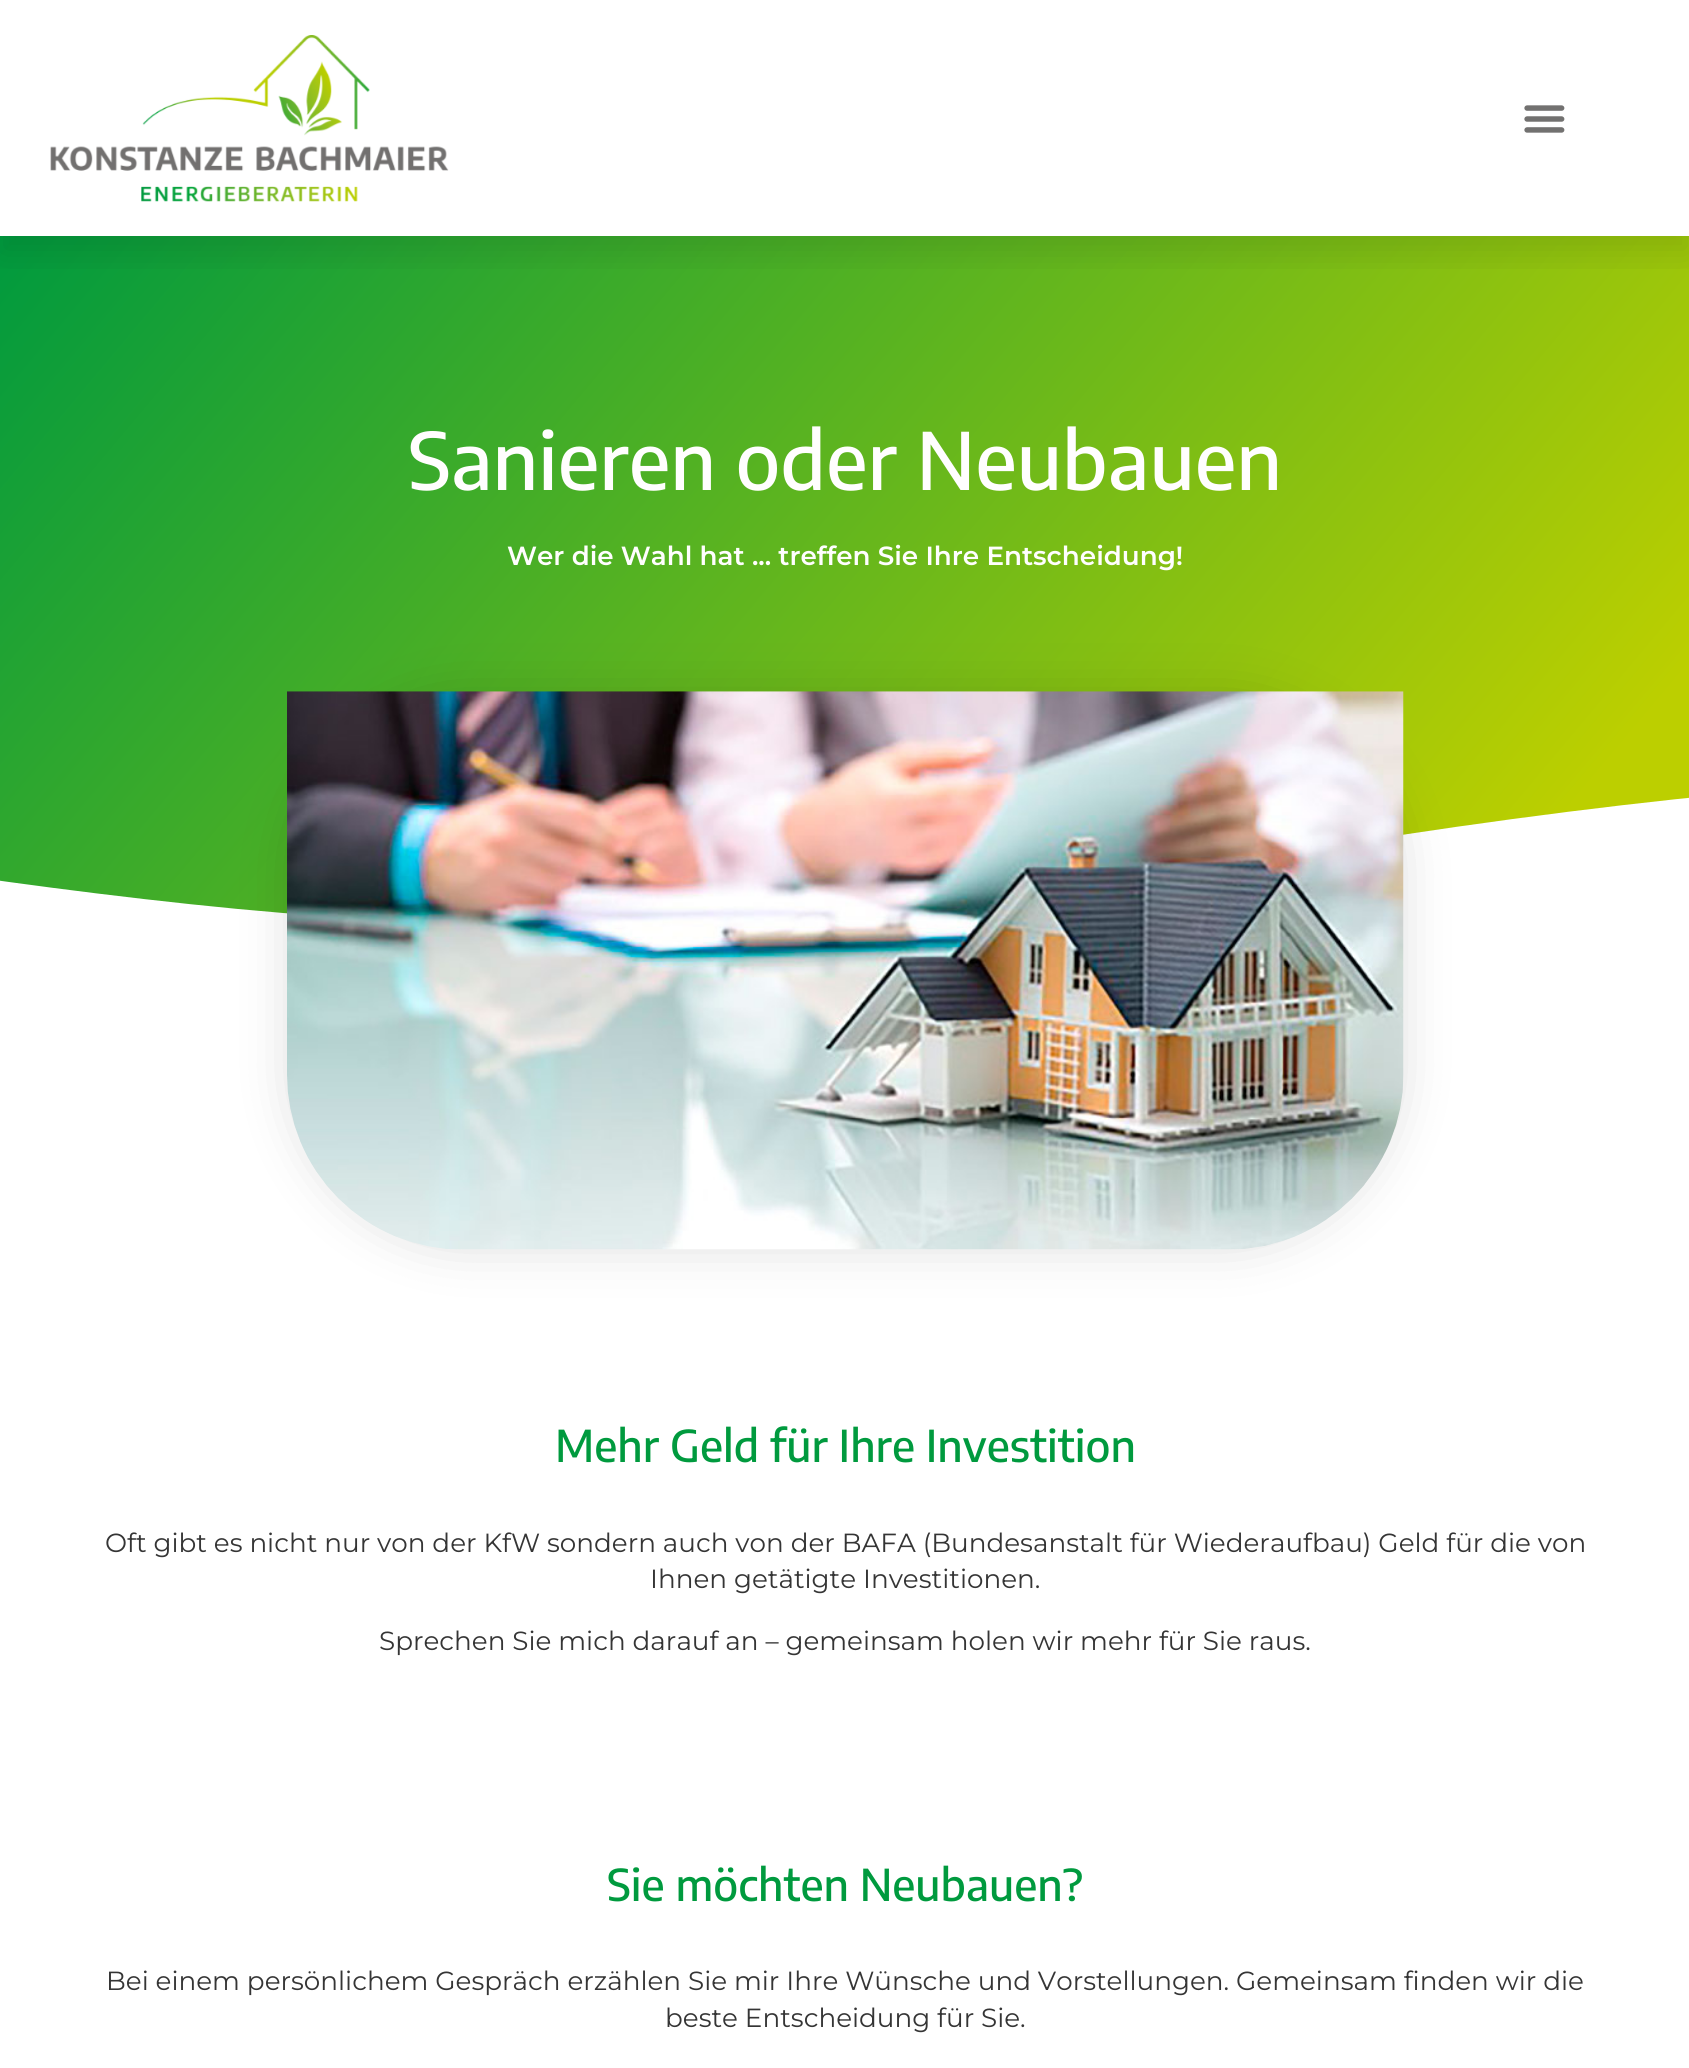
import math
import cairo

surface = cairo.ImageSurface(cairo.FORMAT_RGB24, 1689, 2068)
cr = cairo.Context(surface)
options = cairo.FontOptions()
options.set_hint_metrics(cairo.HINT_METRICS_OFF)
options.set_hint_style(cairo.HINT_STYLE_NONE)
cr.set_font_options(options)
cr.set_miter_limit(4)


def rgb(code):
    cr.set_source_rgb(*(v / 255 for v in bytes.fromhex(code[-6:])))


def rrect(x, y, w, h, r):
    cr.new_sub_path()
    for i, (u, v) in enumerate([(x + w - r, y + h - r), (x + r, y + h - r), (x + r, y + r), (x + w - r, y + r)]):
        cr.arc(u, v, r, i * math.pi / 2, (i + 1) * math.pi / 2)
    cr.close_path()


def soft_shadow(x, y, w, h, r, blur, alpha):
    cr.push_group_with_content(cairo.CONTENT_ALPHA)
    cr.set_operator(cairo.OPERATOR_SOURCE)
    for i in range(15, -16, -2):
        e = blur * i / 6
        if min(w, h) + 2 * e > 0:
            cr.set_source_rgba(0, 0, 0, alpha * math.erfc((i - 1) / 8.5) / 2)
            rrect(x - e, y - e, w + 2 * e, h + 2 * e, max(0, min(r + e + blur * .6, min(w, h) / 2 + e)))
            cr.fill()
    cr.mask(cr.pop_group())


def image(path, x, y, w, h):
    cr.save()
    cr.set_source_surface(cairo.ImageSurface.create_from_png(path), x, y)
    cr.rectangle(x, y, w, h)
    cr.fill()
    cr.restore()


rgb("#ffffff")
cr.paint()
gradient = cairo.LinearGradient(177, 25, 1514, 1147)
gradient.add_color_stop_rgba(0, 0, 0.604, 0.243, 1)
gradient.add_color_stop_rgba(0.9, 0.737, 0.812, 0, 1)
cr.set_source(gradient)
cr.rectangle(0, 236, 1689, 678)
cr.fill()
cr.save()
cr.rectangle(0, 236, 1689, 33)
cr.clip()
rgb("#000000")
soft_shadow(0, 18, 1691, 236, 0, 17.5, 0.1)
cr.restore()
image("img/1.png", 50, 35, 399, 167)
image("img/2.png", 1524, 105, 41, 28)
rgb("#ffffff")
cr.new_path()
cr.move_to(502, 927)
cr.curve_to(601, 931, 728, 926, 834, 917)
cr.curve_to(938, 909, 1146, 876, 1276, 855)
cr.curve_to(1609, 799, 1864, 777, 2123, 768)
cr.curve_to(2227, 764, 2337, 762, 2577, 772)
cr.curve_to(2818, 783, 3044, 817, 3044, 817)
cr.line_to(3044, 938)
cr.line_to(-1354, 938)
cr.line_to(-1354, 885)
cr.curve_to(-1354, 885, -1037, 828, -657, 832)
cr.curve_to(-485, 833, -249, 843, -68, 871)
cr.curve_to(26, 885, 162, 903, 283, 913)
cr.curve_to(402, 924, 456, 925, 502, 927)
cr.close_path()
cr.fill()
rgb("#000000")
soft_shadow(287, 691, 1117, 559, 175, 26, 0.12)
image("img/3.png", 287, 691, 1117, 559)
cr.select_font_face("Encode Sans Medium")
cr.set_font_size(78.75)
rgb("#fffefe")
cr.move_to(408, 490)
cr.show_text("Sanieren oder Neubauen")
cr.select_font_face("Montserrat SemiBold")
cr.set_font_size(26.25)
cr.move_to(507, 565)
cr.show_text("Wer die Wahl hat ... treffen Sie Ihre Entscheidung!")
cr.select_font_face("Encode Sans Medium")
cr.set_font_size(43.75)
rgb("#009a3e")
cr.move_to(555, 1462)
cr.show_text("Mehr Geld für Ihre Investition")
cr.select_font_face("Montserrat")
cr.set_font_size(26.25)
rgb("#353535")
for x, y, s in [
    (105, 1552, "Oft gibt es nicht nur von der KfW sondern auch von der BAFA (Bundesanstalt für Wiederaufbau) Geld für die von"),
    (650, 1588, "Ihnen getätigte Investitionen."),
    (379, 1650, "Sprechen Sie mich darauf an – gemeinsam holen wir mehr für Sie raus."),
]:
    cr.move_to(x, y)
    cr.show_text(s)
cr.select_font_face("Encode Sans Medium")
cr.set_font_size(43.75)
rgb("#009a3e")
cr.move_to(607, 1901)
cr.show_text("Sie möchten Neubauen?")
cr.select_font_face("Montserrat")
cr.set_font_size(26.25)
rgb("#353535")
cr.move_to(106, 1990)
cr.show_text("Bei einem persönlichem Gespräch erzählen Sie mir Ihre Wünsche und Vorstellungen. Gemeinsam finden wir die")
cr.move_to(665, 2027)
cr.show_text("beste Entscheidung für Sie.")
surface.write_to_png("page.png")
